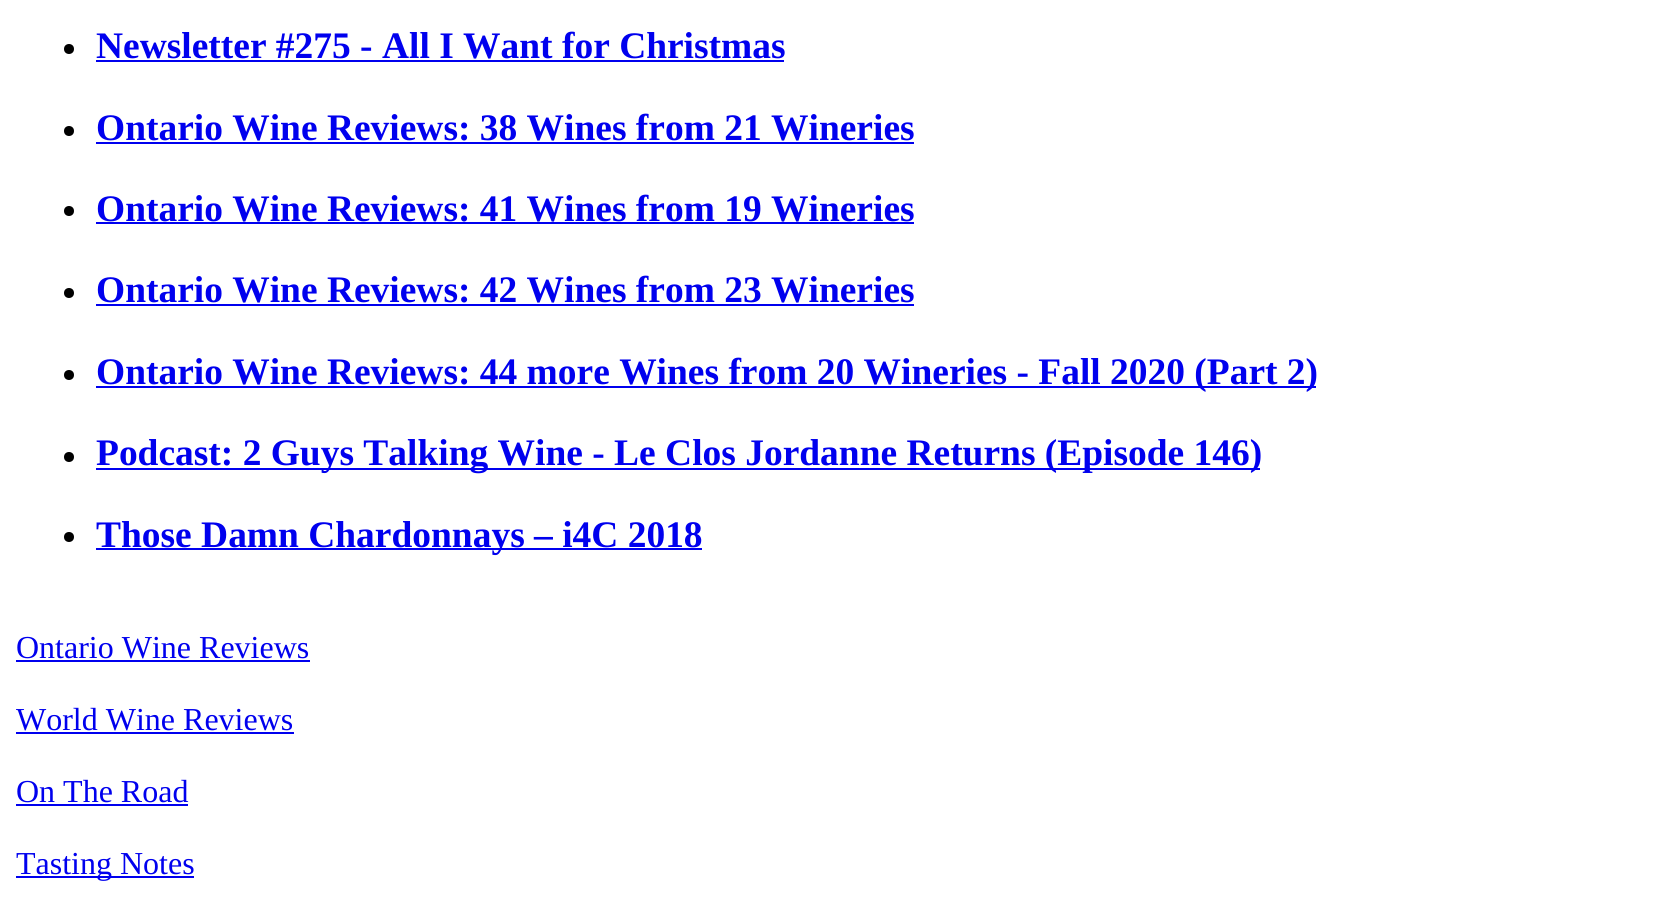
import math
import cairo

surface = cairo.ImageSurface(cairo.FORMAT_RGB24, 1679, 916)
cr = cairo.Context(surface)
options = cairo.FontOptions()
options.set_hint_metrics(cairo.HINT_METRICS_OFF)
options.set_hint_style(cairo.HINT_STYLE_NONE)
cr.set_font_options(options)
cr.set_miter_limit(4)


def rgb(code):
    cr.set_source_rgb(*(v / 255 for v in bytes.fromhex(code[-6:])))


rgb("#ffffff")
cr.paint()
rgb("#000000")
cr.arc(69, 49, 5, 0, 2 * math.pi)
cr.fill()
rgb("#0000ee")
cr.rectangle(96, 60, 688, 2)
cr.fill()
rgb("#000000")
cr.arc(69, 131, 5, 0, 2 * math.pi)
cr.fill()
rgb("#0000ee")
cr.rectangle(96, 142, 818, 2)
cr.fill()
rgb("#000000")
cr.arc(69, 211, 5, 0, 2 * math.pi)
cr.fill()
rgb("#0000ee")
cr.rectangle(96, 222, 818, 2)
cr.fill()
rgb("#000000")
cr.arc(69, 293, 5, 0, 2 * math.pi)
cr.fill()
rgb("#0000ee")
cr.rectangle(96, 304, 818, 2)
cr.fill()
rgb("#000000")
cr.arc(69, 375, 5, 0, 2 * math.pi)
cr.fill()
rgb("#0000ee")
cr.rectangle(96, 386, 1220, 2)
cr.fill()
rgb("#000000")
cr.arc(69, 457, 5, 0, 2 * math.pi)
cr.fill()
rgb("#0000ee")
cr.rectangle(96, 468, 1164, 2)
cr.fill()
rgb("#000000")
cr.arc(69, 537, 5, 0, 2 * math.pi)
cr.fill()
for x, y, w, h, color in [
    (96, 548, 606, 2, "#0000ee"),
    (16, 660, 294, 2, "#0000ee"),
    (16, 732, 278, 2, "#0000ee"),
    (16, 804, 172, 2, "#0000ee"),
    (16, 876, 178, 2, "#0000ee"),
]:
    rgb(color)
    cr.rectangle(x, y, w, h)
    cr.fill()
cr.select_font_face("Liberation Serif", cairo.FONT_SLANT_NORMAL, cairo.FONT_WEIGHT_BOLD)
cr.set_font_size(37.45)
for x, y, s in [
    (96, 58, "Newsletter #275 - All I Want for Christmas"),
    (96, 140, "Ontario Wine Reviews: 38 Wines from 21 Wineries"),
    (96, 221, "Ontario Wine Reviews: 41 Wines from 19 Wineries"),
    (96, 302, "Ontario Wine Reviews: 42 Wines from 23 Wineries"),
    (96, 384, "Ontario Wine Reviews: 44 more Wines from 20 Wineries - Fall 2020 (Part 2)"),
    (96, 465, "Podcast: 2 Guys Talking Wine - Le Clos Jordanne Returns (Episode 146)"),
    (96, 547, "Those Damn Chardonnays – i4C 2018"),
]:
    cr.move_to(x, y)
    cr.show_text(s)
cr.select_font_face("Liberation Serif")
cr.set_font_size(32)
for x, y, s in [
    (16, 658, "Ontario Wine Reviews"),
    (16, 730, "World Wine Reviews"),
    (16, 802, "On The Road"),
    (16, 874, "Tasting Notes"),
]:
    cr.move_to(x, y)
    cr.show_text(s)
surface.write_to_png("page.png")
